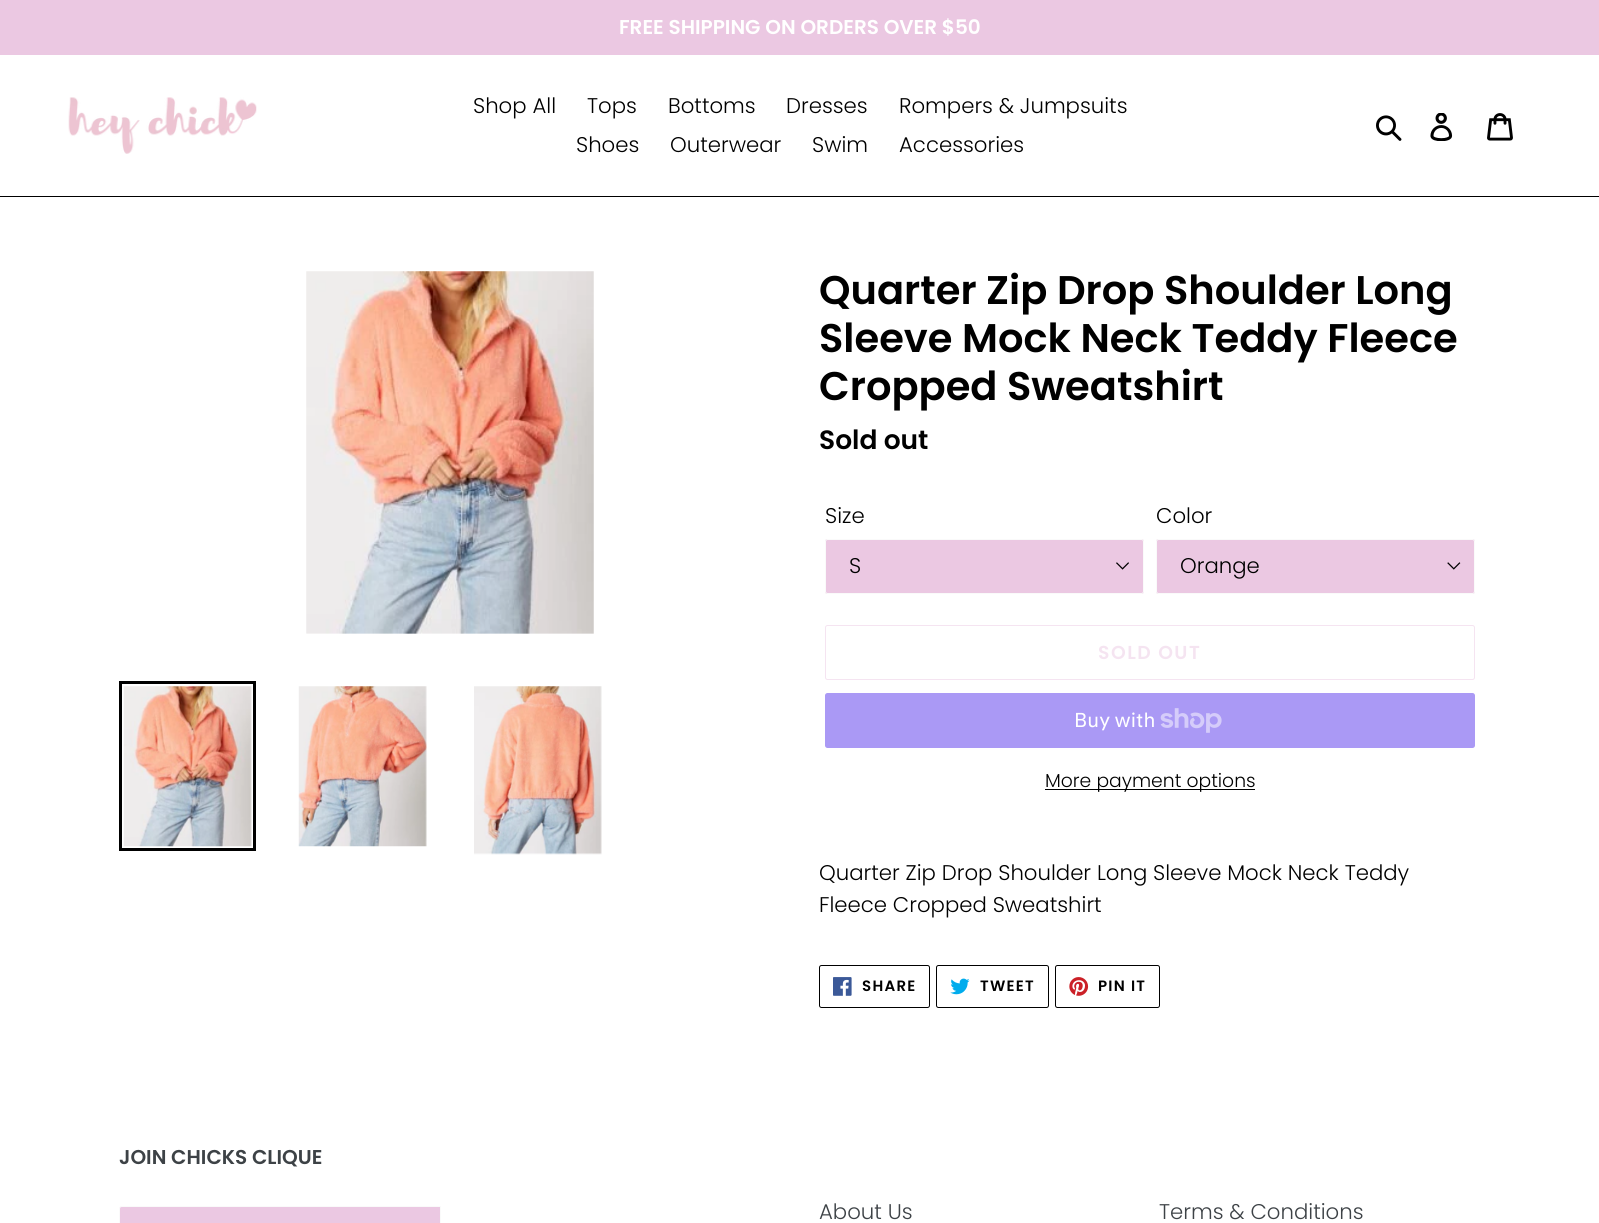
import math
import cairo

surface = cairo.ImageSurface(cairo.FORMAT_RGB24, 1599, 1223)
cr = cairo.Context(surface)
options = cairo.FontOptions()
options.set_hint_metrics(cairo.HINT_METRICS_OFF)
options.set_hint_style(cairo.HINT_STYLE_NONE)
cr.set_font_options(options)
cr.set_miter_limit(4)


def rgb(code):
    cr.set_source_rgb(*(v / 255 for v in bytes.fromhex(code[-6:])))


def tracked(x, y, s, letter, word):
    cr.move_to(x, y)
    for ch in s:
        cr.show_text(ch)
        cr.rel_move_to(letter + word * (ch == ' '), 0)


def rrect(x, y, w, h, r):
    cr.new_sub_path()
    for i, (u, v) in enumerate([(x + w - r, y + h - r), (x + r, y + h - r), (x + r, y + r), (x + w - r, y + r)]):
        cr.arc(u, v, r, i * math.pi / 2, (i + 1) * math.pi / 2)
    cr.close_path()


def image(path, x, y, w, h):
    cr.save()
    cr.set_source_surface(cairo.ImageSurface.create_from_png(path), x, y)
    cr.rectangle(x, y, w, h)
    cr.fill()
    cr.restore()


rgb("#ffffff")
cr.paint()
rgb("#ebc8e2")
cr.rectangle(0, 0, 1599, 55)
cr.fill()
rgb("#000000")
cr.rectangle(0, 196, 1599, 1)
cr.fill()
image("img/1.png", 68, 97, 189, 57)
image("img/2.png", 1376, 115, 26, 26)
image("img/3.png", 1430, 113, 23, 28)
image("img/4.png", 1487, 113, 26, 28)
image("img/5.png", 306, 271, 288, 363)
cr.rectangle(120.5, 682.5, 134, 167)
cr.set_line_width(3)
cr.stroke()
image("img/6.png", 123, 686, 129, 161)
image("img/7.png", 298, 686, 129, 161)
image("img/8.png", 474, 686, 128, 169)
rgb("#ebc8e2")
rrect(825, 539, 319, 55, 2.5)
cr.fill()
image("img/9.png", 1116, 562, 13, 8)
rrect(825.5, 539.5, 318, 54, 2)
rgb("#fafafa")
cr.set_line_width(1)
cr.stroke()
rgb("#ebc8e2")
rrect(1156, 539, 319, 55, 2.5)
cr.fill()
image("img/10.png", 1447, 562, 14, 8)
rrect(1156.5, 539.5, 318, 54, 2)
rgb("#fafafa")
cr.stroke()
rrect(825.5, 625.5, 649, 54, 2)
rgb("#f5e4f1")
cr.stroke()
rgb("#aa99f5")
rrect(825, 693, 650, 55, 2.5)
cr.fill()
image("img/11.png", 1160, 708, 62, 25)
rgb("#000000")
cr.rectangle(1045, 789, 210, 1)
cr.fill()
rrect(819.5, 965.5, 110, 42, 2)
cr.stroke()
image("img/12.png", 833, 977, 19, 19)
rrect(936.5, 965.5, 112, 42, 2)
cr.stroke()
image("img/13.png", 950, 978, 20, 17)
rrect(1055.5, 965.5, 104, 42, 2)
cr.stroke()
image("img/14.png", 1069, 977, 20, 19)
rgb("#ebc8e2")
cr.new_path()
cr.move_to(121.5, 1206.5)
cr.line_to(440.5, 1206.5)
cr.line_to(440.5, 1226.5)
cr.line_to(121.5, 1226.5)
cr.curve_to(120.5, 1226.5, 119.5, 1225.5, 119.5, 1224.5)
cr.line_to(119.5, 1208.5)
cr.curve_to(119.5, 1207.5, 120.5, 1206.5, 121.5, 1206.5)
cr.close_path()
cr.fill_preserve()
rgb("#fafafa")
cr.stroke()
cr.select_font_face("Poppins SemiBold")
cr.set_font_size(20)
rgb("#ffffff")
cr.move_to(619, 34)
cr.show_text("FREE SHIPPING ON ORDERS OVER $50")
cr.select_font_face("Poppins Light")
cr.set_font_size(21.25)
rgb("#000000")
for x, y, s in [
    (473, 113, "Shop All"),
    (587, 113, "Tops"),
    (668, 113, "Bottoms"),
    (786, 113, "Dresses"),
    (899, 113, "Rompers & Jumpsuits"),
    (576, 152, "Shoes"),
    (670, 152, "Outerwear"),
    (812, 152, "Swim"),
    (899, 152, "Accessories"),
]:
    cr.move_to(x, y)
    cr.show_text(s)
cr.select_font_face("Poppins SemiBold")
cr.set_font_size(40)
for x, y, s in [
    (819, 304, "Quarter Zip Drop Shoulder Long"),
    (819, 352, "Sleeve Mock Neck Teddy Fleece"),
    (819, 400, "Cropped Sweatshirt"),
]:
    cr.move_to(x, y)
    cr.show_text(s)
cr.set_font_size(26.5)
cr.move_to(819, 449)
cr.show_text("Sold out")
cr.select_font_face("Poppins Light")
cr.set_font_size(21.25)
for x, y, s in [
    (825, 523, "Size"),
    (849, 573, "S"),
    (1156, 523, "Color"),
    (1180, 573, "Orange"),
]:
    cr.move_to(x, y)
    cr.show_text(s)
cr.select_font_face("Poppins SemiBold")
cr.set_font_size(18.75)
rgb("#f5e4f1")
tracked(1098, 659, "SOLD OUT", 1.5, 0)
cr.select_font_face("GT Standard")
cr.set_font_size(20)
rgb("#ffffff")
cr.move_to(1074, 727)
cr.show_text("Buy with")
cr.select_font_face("Poppins Light")
cr.set_font_size(18.75)
rgb("#000000")
cr.move_to(1045, 787)
cr.show_text("More payment options")
cr.set_font_size(21.25)
cr.move_to(819, 880)
cr.show_text("Quarter Zip Drop Shoulder Long Sleeve Mock Neck Teddy")
cr.move_to(819, 912)
cr.show_text("Fleece Cropped Sweatshirt")
cr.select_font_face("Poppins SemiBold")
cr.set_font_size(15)
for x, y, s in [
    (862, 991, "SHARE"),
    (980, 991, "TWEET"),
    (1098, 991, "PIN IT"),
]:
    tracked(x, y, s, 1.25, 0)
cr.set_font_size(20)
rgb("#3d4246")
cr.move_to(119, 1164)
cr.show_text("JOIN CHICKS CLIQUE")
cr.select_font_face("Poppins Light")
cr.set_font_size(21.25)
cr.move_to(819, 1219)
cr.show_text("About Us")
cr.move_to(1159, 1219)
cr.show_text("Terms & Conditions")
surface.write_to_png("page.png")
